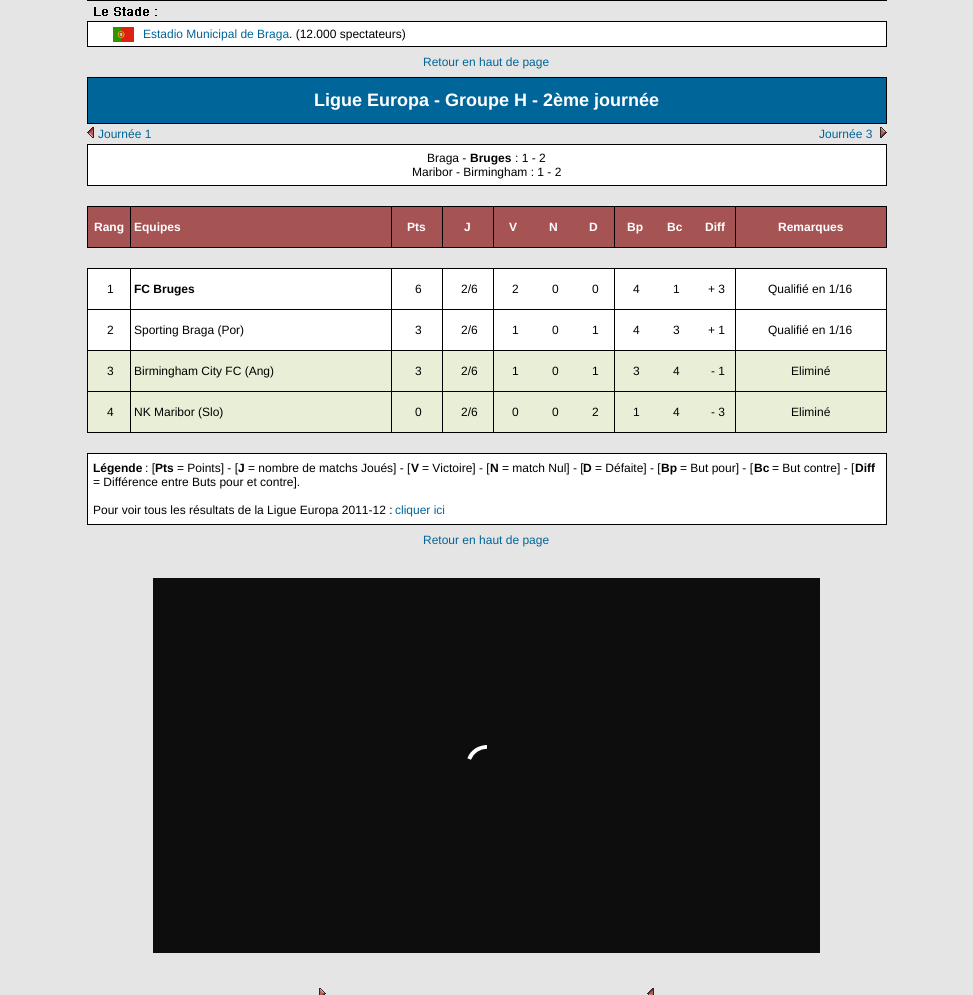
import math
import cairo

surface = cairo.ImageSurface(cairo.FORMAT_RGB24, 973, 995)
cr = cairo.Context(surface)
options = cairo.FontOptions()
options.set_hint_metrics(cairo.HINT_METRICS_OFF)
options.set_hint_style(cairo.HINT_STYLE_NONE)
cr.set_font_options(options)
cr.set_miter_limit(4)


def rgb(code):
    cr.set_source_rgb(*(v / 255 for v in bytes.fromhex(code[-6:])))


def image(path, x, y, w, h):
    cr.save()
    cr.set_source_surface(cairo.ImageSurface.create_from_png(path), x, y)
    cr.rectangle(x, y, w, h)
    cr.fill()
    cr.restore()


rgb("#e5e5e5")
cr.paint()
rgb("#000000")
cr.rectangle(87, 0, 800, 1)
cr.fill()
image("img/1.png", 94, 7, 63, 9)
for x, y, w, h, color in [
    (87, 21, 800, 1, "#000000"),
    (87, 22, 1, 24, "#000000"),
    (88, 22, 798, 24, "#ffffff"),
    (886, 22, 1, 24, "#000000"),
]:
    rgb(color)
    cr.rectangle(x, y, w, h)
    cr.fill()
image("img/2.png", 113, 27, 21, 15)
for x, y, w, h, color in [
    (87, 46, 800, 1, "#000000"),
    (87, 77, 800, 1, "#000000"),
    (87, 78, 1, 45, "#000000"),
    (88, 78, 798, 45, "#006599"),
    (886, 78, 1, 45, "#000000"),
    (87, 123, 800, 1, "#000000"),
]:
    rgb(color)
    cr.rectangle(x, y, w, h)
    cr.fill()
image("img/3.png", 87, 127, 7, 11)
image("img/4.png", 880, 127, 7, 11)
for x, y, w, h, color in [
    (87, 144, 800, 1, "#000000"),
    (87, 145, 1, 40, "#000000"),
    (88, 145, 798, 40, "#ffffff"),
    (886, 145, 1, 40, "#000000"),
    (87, 185, 800, 1, "#000000"),
    (87, 206, 800, 1, "#000000"),
    (87, 207, 1, 40, "#000000"),
    (88, 207, 42, 40, "#a65353"),
    (130, 207, 1, 40, "#000000"),
    (131, 207, 260, 40, "#a65353"),
    (391, 207, 1, 40, "#000000"),
    (392, 207, 50, 40, "#a65353"),
    (442, 207, 1, 40, "#000000"),
    (443, 207, 50, 40, "#a65353"),
    (493, 207, 1, 40, "#000000"),
    (494, 207, 120, 40, "#a65353"),
    (614, 207, 1, 40, "#000000"),
    (615, 207, 120, 40, "#a65353"),
    (735, 207, 1, 40, "#000000"),
    (736, 207, 150, 40, "#a65353"),
    (886, 207, 1, 40, "#000000"),
    (87, 247, 800, 1, "#000000"),
    (87, 268, 800, 1, "#000000"),
    (87, 269, 1, 40, "#000000"),
    (88, 269, 42, 40, "#ffffff"),
    (130, 269, 1, 40, "#000000"),
    (131, 269, 260, 40, "#ffffff"),
    (391, 269, 1, 40, "#000000"),
    (392, 269, 50, 40, "#ffffff"),
    (442, 269, 1, 40, "#000000"),
    (443, 269, 50, 40, "#ffffff"),
    (493, 269, 1, 40, "#000000"),
    (494, 269, 120, 40, "#ffffff"),
    (614, 269, 1, 40, "#000000"),
    (615, 269, 120, 40, "#ffffff"),
    (735, 269, 1, 40, "#000000"),
    (736, 269, 150, 40, "#ffffff"),
    (886, 269, 1, 40, "#000000"),
    (87, 309, 800, 1, "#000000"),
    (87, 310, 1, 40, "#000000"),
    (88, 310, 42, 40, "#ffffff"),
    (130, 310, 1, 40, "#000000"),
    (131, 310, 260, 40, "#ffffff"),
    (391, 310, 1, 40, "#000000"),
    (392, 310, 50, 40, "#ffffff"),
    (442, 310, 1, 40, "#000000"),
    (443, 310, 50, 40, "#ffffff"),
    (493, 310, 1, 40, "#000000"),
    (494, 310, 120, 40, "#ffffff"),
    (614, 310, 1, 40, "#000000"),
    (615, 310, 120, 40, "#ffffff"),
    (735, 310, 1, 40, "#000000"),
    (736, 310, 150, 40, "#ffffff"),
    (886, 310, 1, 40, "#000000"),
    (87, 350, 800, 1, "#000000"),
    (87, 351, 1, 40, "#000000"),
    (88, 351, 42, 40, "#e9efd7"),
    (130, 351, 1, 40, "#000000"),
    (131, 351, 260, 40, "#e9efd7"),
    (391, 351, 1, 40, "#000000"),
    (392, 351, 50, 40, "#e9efd7"),
    (442, 351, 1, 40, "#000000"),
    (443, 351, 50, 40, "#e9efd7"),
    (493, 351, 1, 40, "#000000"),
    (494, 351, 120, 40, "#e9efd7"),
    (614, 351, 1, 40, "#000000"),
    (615, 351, 120, 40, "#e9efd7"),
    (735, 351, 1, 40, "#000000"),
    (736, 351, 150, 40, "#e9efd7"),
    (886, 351, 1, 40, "#000000"),
    (87, 391, 800, 1, "#000000"),
    (87, 392, 1, 40, "#000000"),
    (88, 392, 42, 40, "#e9efd7"),
    (130, 392, 1, 40, "#000000"),
    (131, 392, 260, 40, "#e9efd7"),
    (391, 392, 1, 40, "#000000"),
    (392, 392, 50, 40, "#e9efd7"),
    (442, 392, 1, 40, "#000000"),
    (443, 392, 50, 40, "#e9efd7"),
    (493, 392, 1, 40, "#000000"),
    (494, 392, 120, 40, "#e9efd7"),
    (614, 392, 1, 40, "#000000"),
    (615, 392, 120, 40, "#e9efd7"),
    (735, 392, 1, 40, "#000000"),
    (736, 392, 150, 40, "#e9efd7"),
    (886, 392, 1, 40, "#000000"),
    (87, 432, 800, 1, "#000000"),
    (87, 453, 800, 1, "#000000"),
    (87, 454, 1, 70, "#000000"),
    (88, 454, 798, 70, "#ffffff"),
    (886, 454, 1, 70, "#000000"),
    (87, 524, 800, 1, "#000000"),
]:
    rgb(color)
    cr.rectangle(x, y, w, h)
    cr.fill()
image("img/5.png", 153, 578, 667, 375)
image("img/6.png", 319, 988, 7, 7)
image("img/7.png", 647, 988, 7, 7)
cr.select_font_face("Liberation Sans")
cr.set_font_size(12)
rgb("#006599")
cr.move_to(143, 38)
cr.show_text("Estadio Municipal de Braga")
rgb("#000000")
cr.move_to(289, 38)
cr.show_text(". (12.000 spectateurs)")
rgb("#006599")
cr.move_to(423, 66)
cr.show_text("Retour en haut de page")
cr.select_font_face("Liberation Sans", cairo.FONT_SLANT_NORMAL, cairo.FONT_WEIGHT_BOLD)
cr.set_font_size(18)
rgb("#ffffff")
cr.move_to(314, 106)
cr.show_text("Ligue Europa - Groupe H - 2ème journée")
cr.select_font_face("Liberation Sans")
cr.set_font_size(12)
rgb("#006599")
cr.move_to(98, 138)
cr.show_text("Journée 1")
cr.move_to(819, 138)
cr.show_text("Journée 3")
rgb("#000000")
cr.move_to(427, 162)
cr.show_text("Braga -")
cr.select_font_face("Liberation Sans", cairo.FONT_SLANT_NORMAL, cairo.FONT_WEIGHT_BOLD)
cr.move_to(470, 162)
cr.show_text("Bruges")
cr.select_font_face("Liberation Sans")
cr.move_to(515, 162)
cr.show_text(": 1 - 2")
cr.move_to(412, 176)
cr.show_text("Maribor - Birmingham : 1 - 2")
cr.select_font_face("Liberation Sans", cairo.FONT_SLANT_NORMAL, cairo.FONT_WEIGHT_BOLD)
rgb("#ffffff")
for x, y, s in [
    (94, 231, "Rang"),
    (134, 231, "Equipes"),
    (407, 231, "Pts"),
    (464, 231, "J"),
    (509, 231, "V"),
    (549, 231, "N"),
    (589, 231, "D"),
    (627, 231, "Bp"),
    (667, 231, "Bc"),
    (705, 231, "Diff"),
    (778, 231, "Remarques"),
]:
    cr.move_to(x, y)
    cr.show_text(s)
cr.select_font_face("Liberation Sans")
rgb("#000000")
cr.move_to(107, 293)
cr.show_text("1")
cr.select_font_face("Liberation Sans", cairo.FONT_SLANT_NORMAL, cairo.FONT_WEIGHT_BOLD)
cr.move_to(134, 293)
cr.show_text("FC Bruges")
cr.select_font_face("Liberation Sans")
for x, y, s in [
    (415, 293, "6"),
    (461, 293, "2/6"),
    (512, 293, "2"),
    (552, 293, "0"),
    (592, 293, "0"),
    (633, 293, "4"),
    (673, 293, "1"),
    (708, 293, "+ 3"),
    (768, 293, "Qualifié en 1/16"),
    (107, 334, "2"),
    (134, 334, "Sporting Braga (Por)"),
    (415, 334, "3"),
    (461, 334, "2/6"),
    (512, 334, "1"),
    (552, 334, "0"),
    (592, 334, "1"),
    (633, 334, "4"),
    (673, 334, "3"),
    (708, 334, "+ 1"),
    (768, 334, "Qualifié en 1/16"),
    (107, 375, "3"),
    (134, 375, "Birmingham City FC (Ang)"),
    (415, 375, "3"),
    (461, 375, "2/6"),
    (512, 375, "1"),
    (552, 375, "0"),
    (592, 375, "1"),
    (633, 375, "3"),
    (673, 375, "4"),
    (711, 375, "- 1"),
    (791, 375, "Eliminé"),
    (107, 416, "4"),
    (134, 416, "NK Maribor (Slo)"),
    (415, 416, "0"),
    (461, 416, "2/6"),
    (512, 416, "0"),
    (552, 416, "0"),
    (592, 416, "2"),
    (633, 416, "1"),
    (673, 416, "4"),
    (711, 416, "- 3"),
    (791, 416, "Eliminé"),
]:
    cr.move_to(x, y)
    cr.show_text(s)
cr.select_font_face("Liberation Sans", cairo.FONT_SLANT_NORMAL, cairo.FONT_WEIGHT_BOLD)
cr.move_to(93, 472)
cr.show_text("Légende")
cr.select_font_face("Liberation Sans")
cr.move_to(145, 472)
cr.show_text(": [")
cr.select_font_face("Liberation Sans", cairo.FONT_SLANT_NORMAL, cairo.FONT_WEIGHT_BOLD)
cr.move_to(155, 472)
cr.show_text("Pts")
cr.select_font_face("Liberation Sans")
cr.move_to(177, 472)
cr.show_text("= Points] - [")
cr.select_font_face("Liberation Sans", cairo.FONT_SLANT_NORMAL, cairo.FONT_WEIGHT_BOLD)
cr.move_to(238, 472)
cr.show_text("J")
cr.select_font_face("Liberation Sans")
cr.move_to(248, 472)
cr.show_text("= nombre de matchs Joués] - [")
cr.select_font_face("Liberation Sans", cairo.FONT_SLANT_NORMAL, cairo.FONT_WEIGHT_BOLD)
cr.move_to(411, 472)
cr.show_text("V")
cr.select_font_face("Liberation Sans")
cr.move_to(422, 472)
cr.show_text("= Victoire] - [")
cr.select_font_face("Liberation Sans", cairo.FONT_SLANT_NORMAL, cairo.FONT_WEIGHT_BOLD)
cr.move_to(490, 472)
cr.show_text("N")
cr.select_font_face("Liberation Sans")
cr.move_to(502, 472)
cr.show_text("= match Nul] - [")
cr.select_font_face("Liberation Sans", cairo.FONT_SLANT_NORMAL, cairo.FONT_WEIGHT_BOLD)
cr.move_to(583, 472)
cr.show_text("D")
cr.select_font_face("Liberation Sans")
cr.move_to(595, 472)
cr.show_text("= Défaite] - [")
cr.select_font_face("Liberation Sans", cairo.FONT_SLANT_NORMAL, cairo.FONT_WEIGHT_BOLD)
cr.move_to(661, 472)
cr.show_text("Bp")
cr.select_font_face("Liberation Sans")
cr.move_to(680, 472)
cr.show_text("= But pour] - [")
cr.select_font_face("Liberation Sans", cairo.FONT_SLANT_NORMAL, cairo.FONT_WEIGHT_BOLD)
cr.move_to(754, 472)
cr.show_text("Bc")
cr.select_font_face("Liberation Sans")
cr.move_to(772, 472)
cr.show_text("= But contre] - [")
cr.select_font_face("Liberation Sans", cairo.FONT_SLANT_NORMAL, cairo.FONT_WEIGHT_BOLD)
cr.move_to(855, 472)
cr.show_text("Diff")
cr.select_font_face("Liberation Sans")
cr.move_to(93, 486)
cr.show_text("= Différence entre Buts pour et contre].")
cr.move_to(93, 514)
cr.show_text("Pour voir tous les résultats de la Ligue Europa 2011-12 :")
rgb("#006599")
cr.move_to(395, 514)
cr.show_text("cliquer ici")
cr.move_to(423, 544)
cr.show_text("Retour en haut de page")
surface.write_to_png("page.png")
